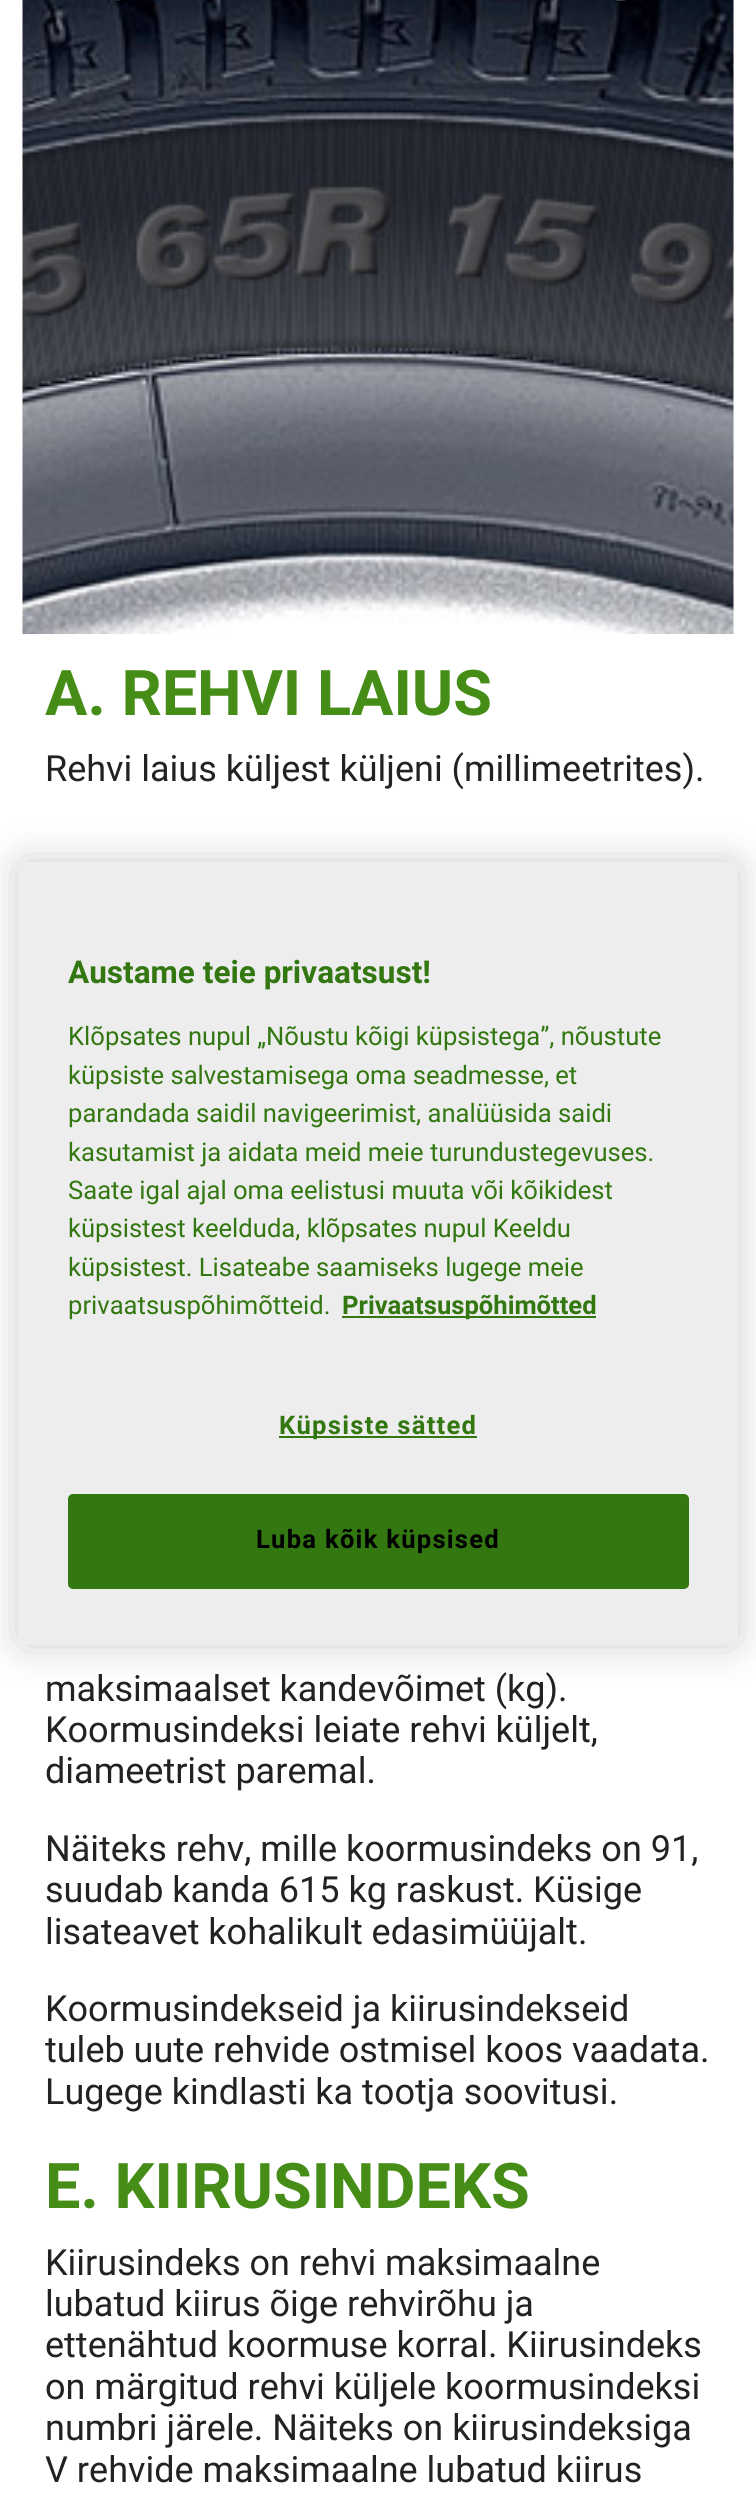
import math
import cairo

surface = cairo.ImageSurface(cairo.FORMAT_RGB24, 756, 2506)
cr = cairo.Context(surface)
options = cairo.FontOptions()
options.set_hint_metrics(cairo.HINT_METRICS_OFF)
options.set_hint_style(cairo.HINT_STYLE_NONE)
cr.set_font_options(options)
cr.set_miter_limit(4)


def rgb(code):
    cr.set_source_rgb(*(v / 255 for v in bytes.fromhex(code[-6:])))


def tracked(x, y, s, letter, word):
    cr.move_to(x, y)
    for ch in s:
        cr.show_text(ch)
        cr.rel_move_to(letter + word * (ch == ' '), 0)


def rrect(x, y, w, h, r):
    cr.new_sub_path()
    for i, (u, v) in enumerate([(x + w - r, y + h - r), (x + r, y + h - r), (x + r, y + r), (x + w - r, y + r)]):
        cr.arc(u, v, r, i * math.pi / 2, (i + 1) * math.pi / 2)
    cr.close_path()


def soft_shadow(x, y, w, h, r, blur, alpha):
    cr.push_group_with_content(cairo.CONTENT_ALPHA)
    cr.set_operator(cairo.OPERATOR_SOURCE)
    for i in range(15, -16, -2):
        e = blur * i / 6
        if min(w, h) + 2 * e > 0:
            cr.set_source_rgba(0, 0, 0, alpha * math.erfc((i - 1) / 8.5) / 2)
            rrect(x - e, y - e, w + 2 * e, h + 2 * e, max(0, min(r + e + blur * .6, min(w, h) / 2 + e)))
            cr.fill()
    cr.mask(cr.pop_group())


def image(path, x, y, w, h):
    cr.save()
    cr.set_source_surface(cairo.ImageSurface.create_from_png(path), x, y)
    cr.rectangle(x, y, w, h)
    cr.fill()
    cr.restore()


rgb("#ffffff")
cr.paint()
image("img/1.png", 22, 0, 712, 634)
rgb("#000000")
soft_shadow(18, 862, 720, 783, 6, 20, 0.2)
rgb("#ededed")
rrect(18, 862, 720, 783, 6)
cr.fill()
rgb("#337711")
cr.rectangle(342, 1316, 254, 2)
cr.fill()
cr.rectangle(279, 1436, 198, 2)
cr.fill()
rrect(69, 1495, 619, 93, 4)
cr.fill_preserve()
cr.stroke()
cr.select_font_face("Roboto", cairo.FONT_SLANT_NORMAL, cairo.FONT_WEIGHT_BOLD)
cr.set_font_size(63)
rgb("#468d17")
cr.move_to(45, 715)
cr.show_text("A. REHVI LAIUS")
cr.select_font_face("Roboto")
cr.set_font_size(36)
rgb("#222222")
for x, y, s in [
    (45, 781, "Rehvi laius küljest küljeni (millimeetrites)."),
    (45, 1701, "maksimaalset kandevõimet (kg)."),
    (45, 1742, "Koormusindeksi leiate rehvi küljelt,"),
    (45, 1783, "diameetrist paremal."),
    (45, 1861, "Näiteks rehv, mille koormusindeks on 91,"),
    (45, 1902, "suudab kanda 615 kg raskust. Küsige"),
    (45, 1944, "lisateavet kohalikult edasimüüjalt."),
    (45, 2021, "Koormusindekseid ja kiirusindekseid"),
    (45, 2062, "tuleb uute rehvide ostmisel koos vaadata."),
    (45, 2104, "Lugege kindlasti ka tootja soovitusi."),
]:
    cr.move_to(x, y)
    cr.show_text(s)
cr.select_font_face("Roboto", cairo.FONT_SLANT_NORMAL, cairo.FONT_WEIGHT_BOLD)
cr.set_font_size(63)
rgb("#468d17")
cr.move_to(45, 2208)
cr.show_text("E. KIIRUSINDEKS")
cr.select_font_face("Roboto")
cr.set_font_size(36)
rgb("#222222")
for x, y, s in [
    (45, 2275, "Kiirusindeks on rehvi maksimaalne"),
    (45, 2316, "lubatud kiirus õige rehvirõhu ja"),
    (45, 2357, "ettenähtud koormuse korral. Kiirusindeks"),
    (45, 2399, "on märgitud rehvi küljele koormusindeksi"),
    (45, 2440, "numbri järele. Näiteks on kiirusindeksiga"),
    (45, 2482, "V rehvide maksimaalne lubatud kiirus"),
]:
    cr.move_to(x, y)
    cr.show_text(s)
cr.select_font_face("Roboto", cairo.FONT_SLANT_NORMAL, cairo.FONT_WEIGHT_BOLD)
cr.set_font_size(31.5)
rgb("#337711")
cr.move_to(68, 983)
cr.show_text("Austame teie privaatsust!")
cr.select_font_face("Roboto")
cr.set_font_size(25.6)
for x, y, s in [
    (68, 1045, "Klõpsates nupul „Nõustu kõigi küpsistega”, nõustute"),
    (68, 1084, "küpsiste salvestamisega oma seadmesse, et"),
    (68, 1122, "parandada saidil navigeerimist, analüüsida saidi"),
    (68, 1161, "kasutamist ja aidata meid meie turundustegevuses."),
    (68, 1199, "Saate igal ajal oma eelistusi muuta või kõikidest"),
    (68, 1237, "küpsistest keelduda, klõpsates nupul Keeldu"),
    (68, 1276, "küpsistest. Lisateabe saamiseks lugege meie"),
    (68, 1314, "privaatsuspõhimõtteid."),
]:
    cr.move_to(x, y)
    cr.show_text(s)
cr.select_font_face("Roboto", cairo.FONT_SLANT_NORMAL, cairo.FONT_WEIGHT_BOLD)
cr.move_to(342, 1314)
cr.show_text("Privaatsuspõhimõtted")
tracked(279, 1434, "Küpsiste sätted", 1.25, 0)
rgb("#000000")
tracked(256, 1548, "Luba kõik küpsised", 1.25, 0)
surface.write_to_png("page.png")
